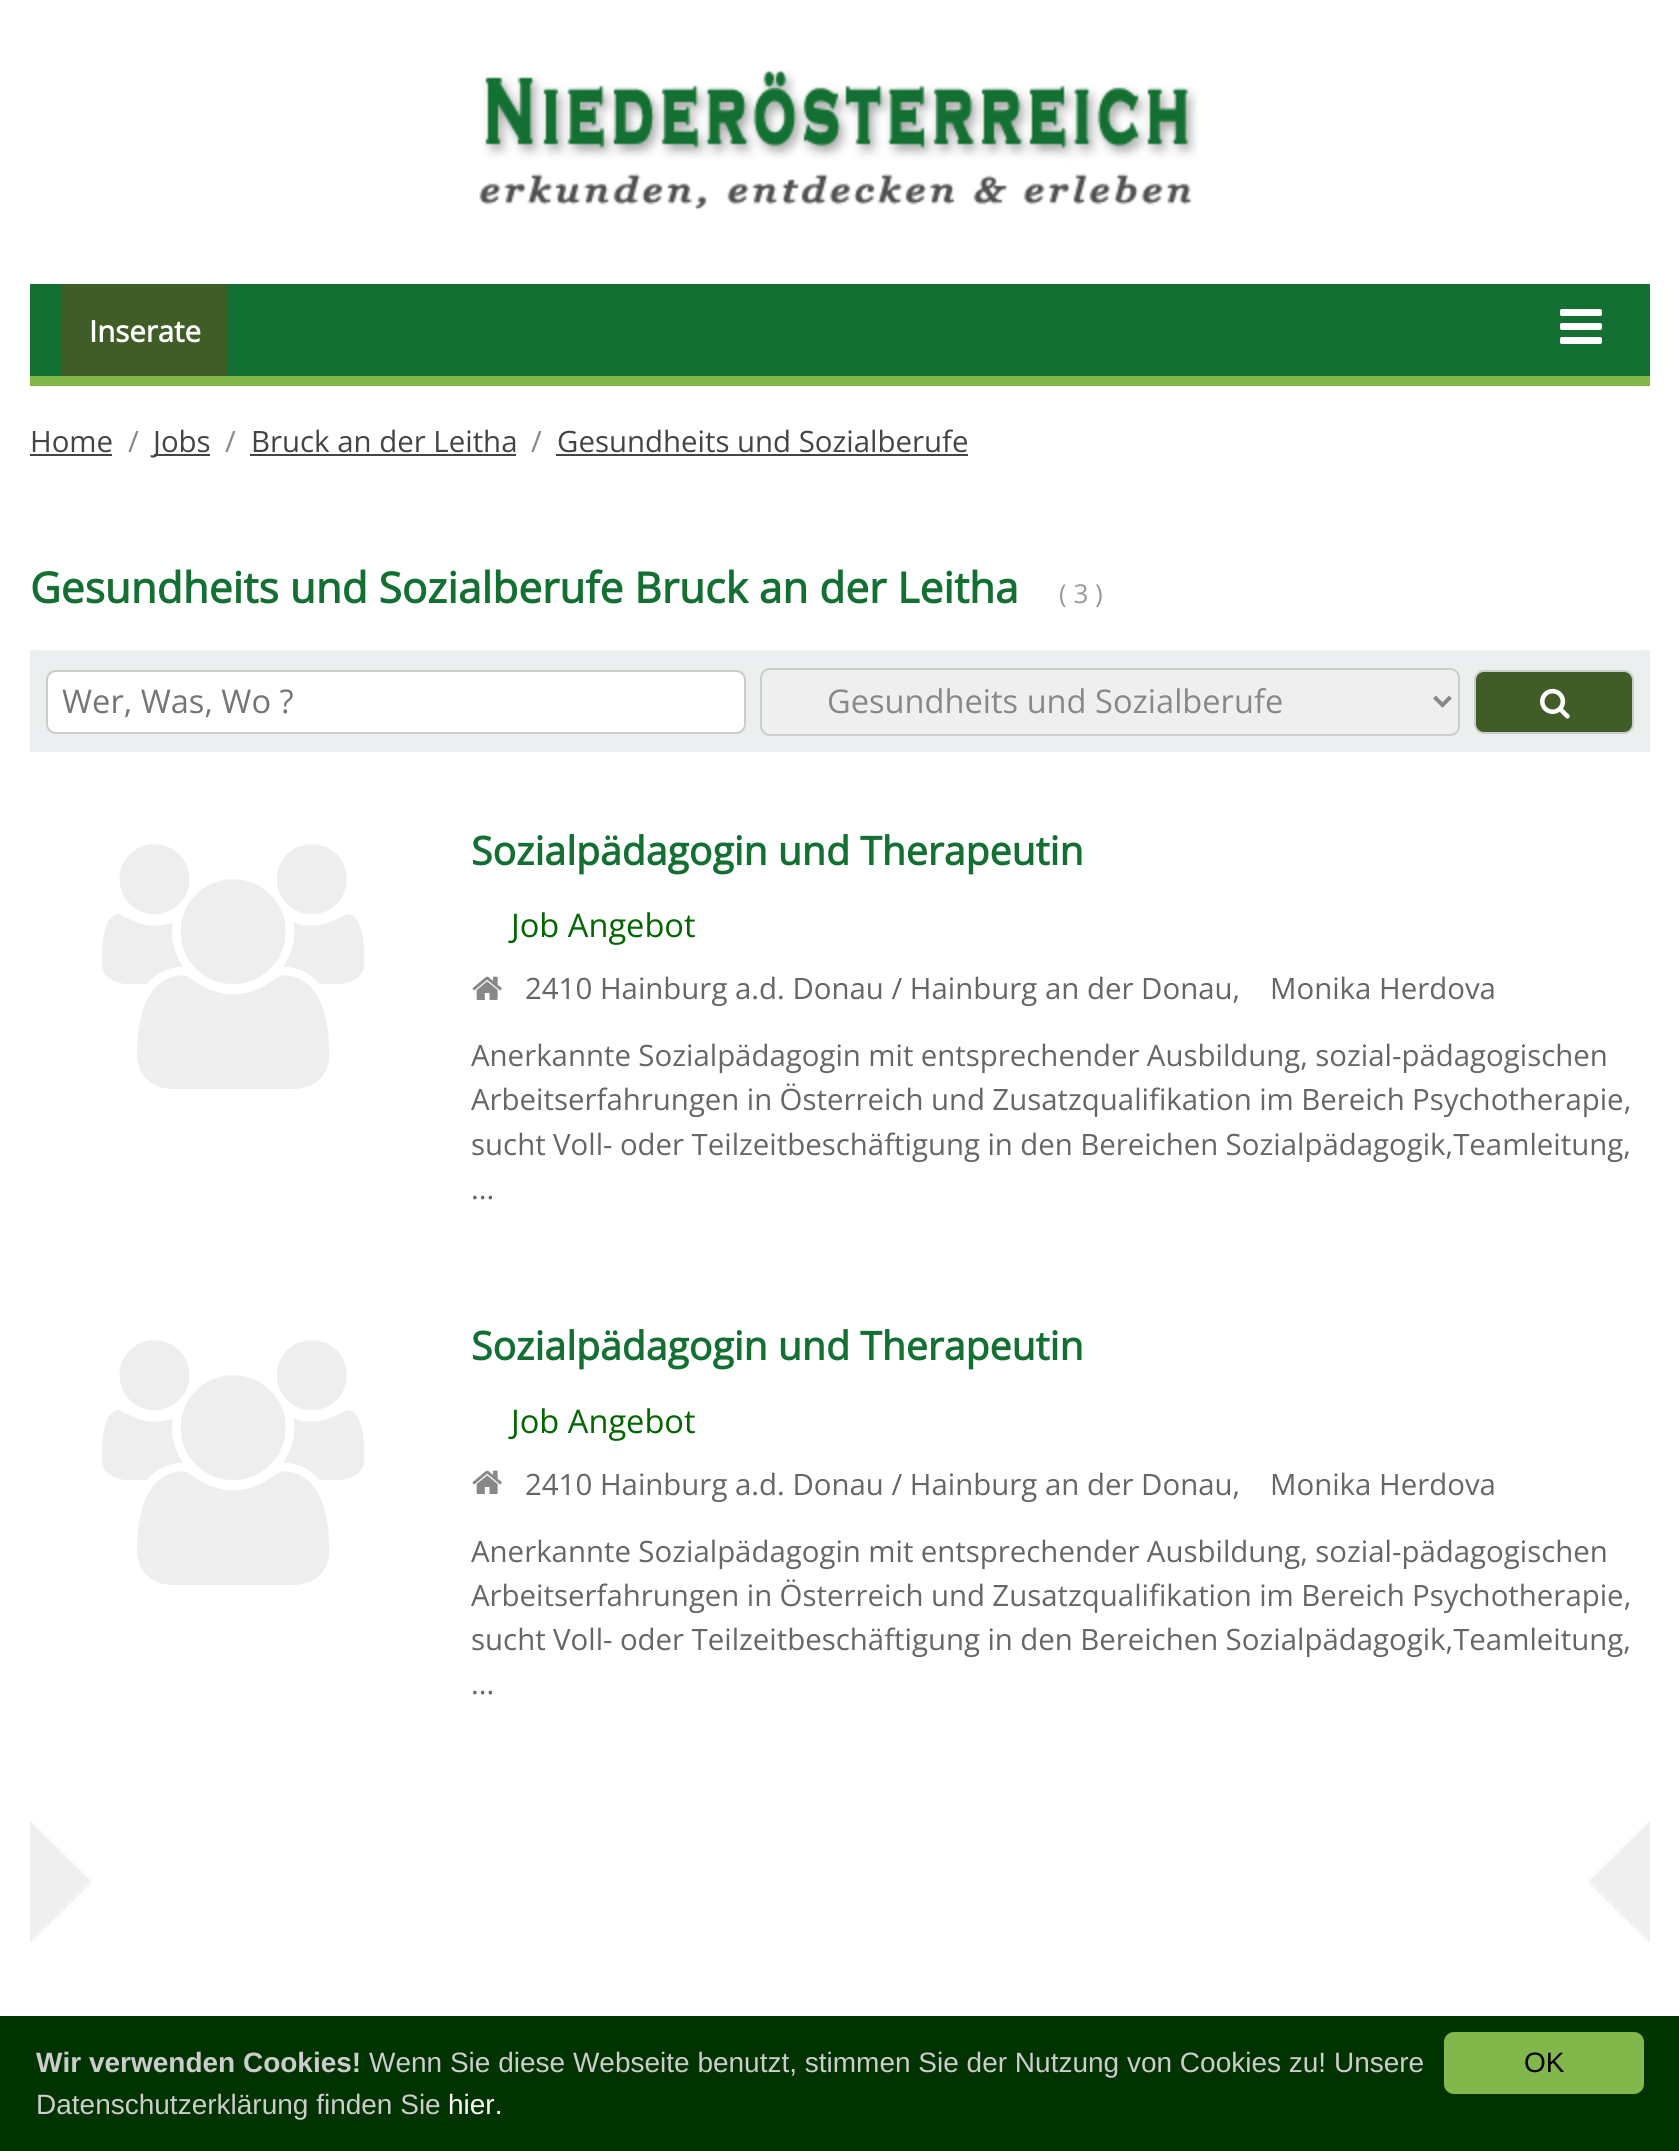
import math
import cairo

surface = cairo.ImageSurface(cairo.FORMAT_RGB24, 1679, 2151)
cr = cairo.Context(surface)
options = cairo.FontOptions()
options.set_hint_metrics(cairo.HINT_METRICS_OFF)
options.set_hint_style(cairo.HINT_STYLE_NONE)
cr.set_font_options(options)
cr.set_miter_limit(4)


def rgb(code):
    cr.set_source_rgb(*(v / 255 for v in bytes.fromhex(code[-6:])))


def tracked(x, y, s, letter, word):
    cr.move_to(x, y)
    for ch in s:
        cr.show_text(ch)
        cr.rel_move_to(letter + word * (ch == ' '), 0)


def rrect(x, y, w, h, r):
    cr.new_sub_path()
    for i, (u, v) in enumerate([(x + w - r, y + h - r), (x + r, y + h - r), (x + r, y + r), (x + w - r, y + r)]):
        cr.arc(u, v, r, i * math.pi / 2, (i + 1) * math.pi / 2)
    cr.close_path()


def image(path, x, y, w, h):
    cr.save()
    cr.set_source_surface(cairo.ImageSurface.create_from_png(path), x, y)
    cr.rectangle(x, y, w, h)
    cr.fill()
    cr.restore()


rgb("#ffffff")
cr.paint()
image("img/1.png", 479, 69, 719, 142)
for x, y, w, h, color in [
    (30, 284, 1620, 92, "#137032"),
    (30, 376, 1620, 10, "#82b74b"),
    (62, 284, 166, 92, "#405d27"),
]:
    rgb(color)
    cr.rectangle(x, y, w, h)
    cr.fill()
image("img/2.png", 1560, 309, 42, 35)
for x, y, w, h, color in [
    (30, 454, 82, 2, "#444444"),
    (154, 454, 56, 2, "#444444"),
    (250, 454, 266, 2, "#444444"),
    (556, 454, 412, 2, "#444444"),
    (30, 650, 1620, 102, "#eceff0"),
]:
    rgb(color)
    cr.rectangle(x, y, w, h)
    cr.fill()
rgb("#ffffff")
rrect(47, 671, 698, 62, 9)
cr.fill_preserve()
rgb("#cccccc")
cr.stroke()
rgb("#efefef")
rrect(761, 669, 698, 66, 9)
cr.fill_preserve()
rgb("#cccccc")
cr.stroke()
cr.new_path()
cr.move_to(1434.5, 697)
cr.line_to(1442.5, 705)
cr.line_to(1450.5, 697)
rgb("#888888")
cr.set_line_width(4)
cr.stroke()
rgb("#405d27")
rrect(1475, 671, 158, 62, 9)
cr.fill_preserve()
rgb("#cccccc")
cr.set_line_width(2)
cr.stroke()
image("img/3.png", 1540, 688, 30, 31)
image("img/4.png", 102, 844, 263, 245)
image("img/5.png", 472, 976, 30, 24)
image("img/4.png", 102, 1340, 263, 245)
image("img/5.png", 472, 1470, 30, 24)
image("img/6.png", 30, 1821, 1620, 122)
rgb("#003300")
cr.rectangle(0, 2016, 1679, 135)
cr.fill()
rgb("#82b74b")
rrect(1444, 2032, 200, 62, 10)
cr.fill()
cr.select_font_face("Open Sans", cairo.FONT_SLANT_NORMAL, cairo.FONT_WEIGHT_BOLD)
cr.set_font_size(29.4)
rgb("#ffffff")
cr.move_to(89, 342)
cr.show_text("Inserate")
cr.select_font_face("Open Sans")
rgb("#444444")
cr.move_to(30, 452)
cr.show_text("Home")
rgb("#888888")
cr.move_to(128, 452)
cr.show_text("/")
rgb("#444444")
cr.move_to(153, 452)
cr.show_text("Jobs")
rgb("#888888")
cr.move_to(225, 452)
cr.show_text("/")
rgb("#444444")
cr.move_to(251, 452)
cr.show_text("Bruck an der Leitha")
rgb("#888888")
cr.move_to(531, 452)
cr.show_text("/")
rgb("#444444")
cr.move_to(557, 452)
cr.show_text("Gesundheits und Sozialberufe")
cr.select_font_face("Open Sans", cairo.FONT_SLANT_NORMAL, cairo.FONT_WEIGHT_BOLD)
cr.set_font_size(42.4)
rgb("#137032")
cr.move_to(30, 603)
cr.show_text("Gesundheits und Sozialberufe Bruck an der Leitha")
cr.select_font_face("Open Sans")
cr.set_font_size(26)
rgb("#999999")
cr.move_to(1059, 603)
cr.show_text("( 3 )")
cr.set_font_size(32.6)
rgb("#757575")
cr.move_to(62, 713)
cr.show_text("Wer, Was, Wo ?")
rgb("#888888")
cr.move_to(827, 713)
cr.show_text("Gesundheits und Sozialberufe")
cr.select_font_face("Open Sans", cairo.FONT_SLANT_NORMAL, cairo.FONT_WEIGHT_BOLD)
cr.set_font_size(39.2)
rgb("#137032")
cr.move_to(471, 865)
cr.show_text("Sozialpädagogin und Therapeutin")
cr.select_font_face("Open Sans")
cr.set_font_size(32.6)
rgb("#006600")
cr.move_to(511, 937)
cr.show_text("Job Angebot")
cr.set_font_size(29.4)
rgb("#666666")
cr.move_to(525, 999)
cr.show_text("2410 Hainburg a.d. Donau / Hainburg an der Donau,")
cr.move_to(1270, 999)
cr.show_text("Monika Herdova")
for x, y, s in [
    (471, 1066, "Anerkannte Sozialpädagogin mit entsprechender Ausbildung, sozial-pädagogischen"),
    (471, 1110, "Arbeitserfahrungen in Österreich und Zusatzqualifikation im Bereich Psychotherapie,"),
    (471, 1155, "sucht Voll- oder Teilzeitbeschäftigung in den Bereichen Sozialpädagogik,Teamleitung,"),
]:
    tracked(x, y, s, 0, -0.25)
cr.move_to(471, 1199)
cr.show_text("...")
cr.select_font_face("Open Sans", cairo.FONT_SLANT_NORMAL, cairo.FONT_WEIGHT_BOLD)
cr.set_font_size(39.2)
rgb("#137032")
cr.move_to(471, 1360)
cr.show_text("Sozialpädagogin und Therapeutin")
cr.select_font_face("Open Sans")
cr.set_font_size(32.6)
rgb("#006600")
cr.move_to(511, 1433)
cr.show_text("Job Angebot")
cr.set_font_size(29.4)
rgb("#666666")
cr.move_to(525, 1495)
cr.show_text("2410 Hainburg a.d. Donau / Hainburg an der Donau,")
cr.move_to(1270, 1495)
cr.show_text("Monika Herdova")
for x, y, s in [
    (471, 1562, "Anerkannte Sozialpädagogin mit entsprechender Ausbildung, sozial-pädagogischen"),
    (471, 1606, "Arbeitserfahrungen in Österreich und Zusatzqualifikation im Bereich Psychotherapie,"),
    (471, 1650, "sucht Voll- oder Teilzeitbeschäftigung in den Bereichen Sozialpädagogik,Teamleitung,"),
]:
    tracked(x, y, s, 0, -0.25)
cr.move_to(471, 1694)
cr.show_text("...")
cr.select_font_face("Liberation Sans", cairo.FONT_SLANT_NORMAL, cairo.FONT_WEIGHT_BOLD)
cr.set_font_size(28)
rgb("#cccccc")
cr.move_to(36, 2072)
cr.show_text("Wir verwenden Cookies!")
cr.select_font_face("Liberation Sans")
cr.move_to(369, 2072)
cr.show_text("Wenn Sie diese Webseite benutzt, stimmen Sie der Nutzung von Cookies zu! Unsere")
cr.move_to(36, 2114)
cr.show_text("Datenschutzerklärung finden Sie")
rgb("#ffffff")
cr.move_to(448, 2114)
cr.show_text("hier.")
rgb("#000000")
cr.move_to(1524, 2072)
cr.show_text("OK")
surface.write_to_png("page.png")
